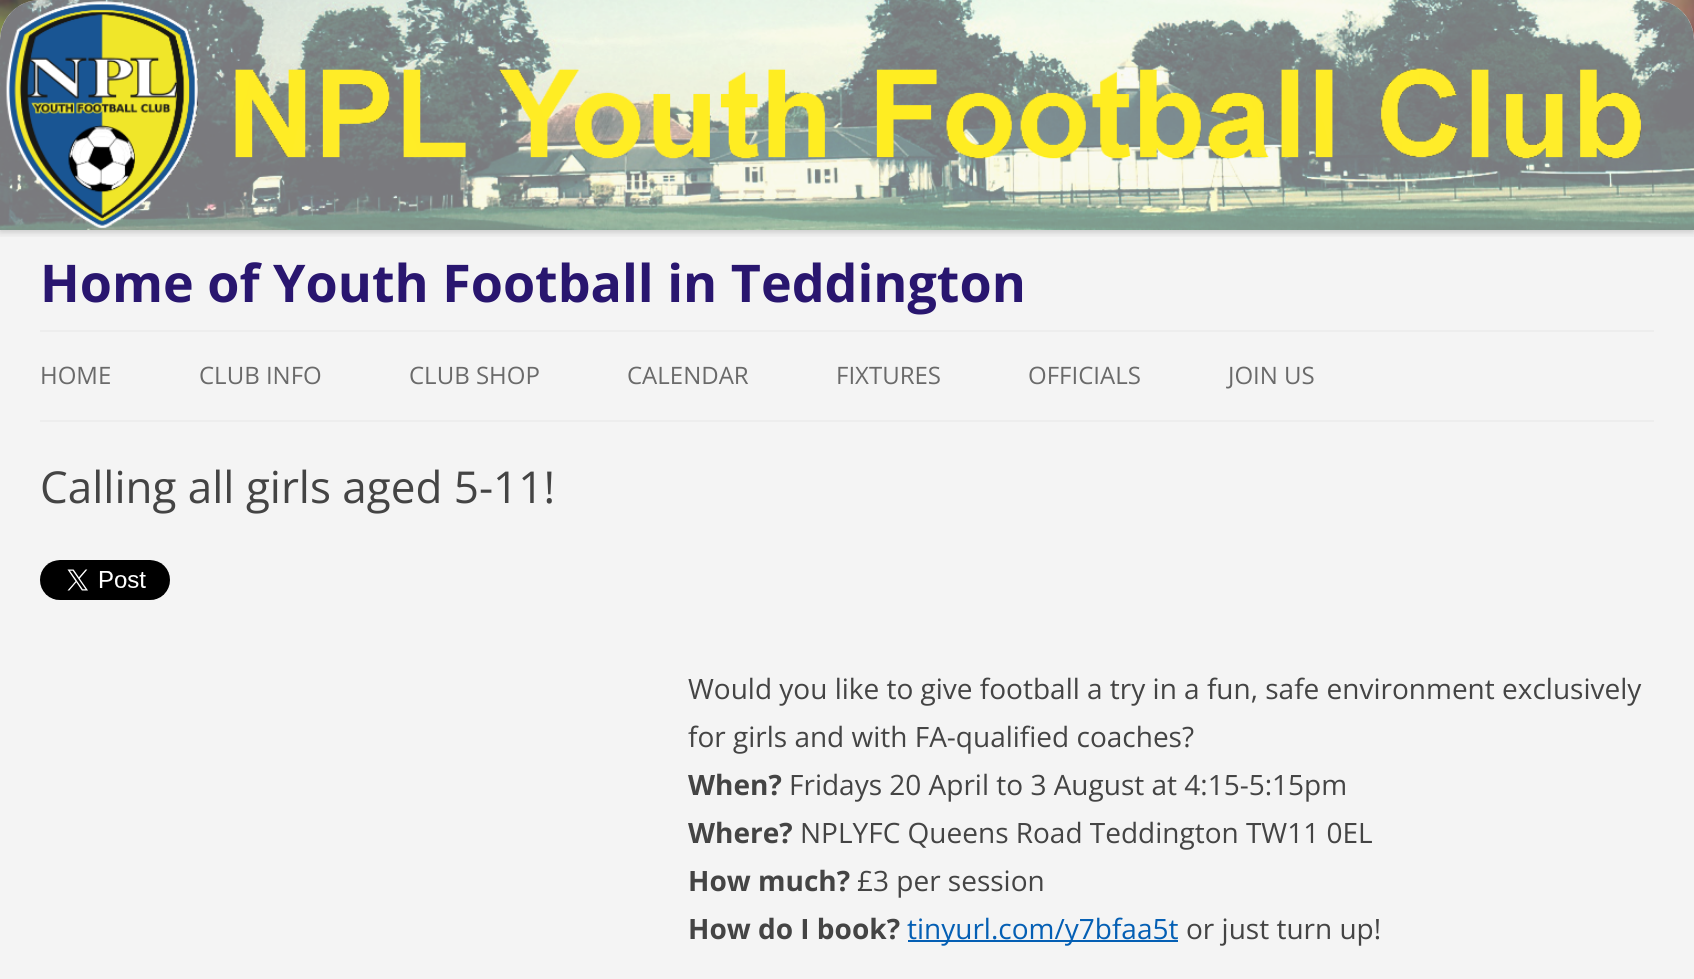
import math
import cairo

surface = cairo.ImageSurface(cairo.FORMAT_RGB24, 1694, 979)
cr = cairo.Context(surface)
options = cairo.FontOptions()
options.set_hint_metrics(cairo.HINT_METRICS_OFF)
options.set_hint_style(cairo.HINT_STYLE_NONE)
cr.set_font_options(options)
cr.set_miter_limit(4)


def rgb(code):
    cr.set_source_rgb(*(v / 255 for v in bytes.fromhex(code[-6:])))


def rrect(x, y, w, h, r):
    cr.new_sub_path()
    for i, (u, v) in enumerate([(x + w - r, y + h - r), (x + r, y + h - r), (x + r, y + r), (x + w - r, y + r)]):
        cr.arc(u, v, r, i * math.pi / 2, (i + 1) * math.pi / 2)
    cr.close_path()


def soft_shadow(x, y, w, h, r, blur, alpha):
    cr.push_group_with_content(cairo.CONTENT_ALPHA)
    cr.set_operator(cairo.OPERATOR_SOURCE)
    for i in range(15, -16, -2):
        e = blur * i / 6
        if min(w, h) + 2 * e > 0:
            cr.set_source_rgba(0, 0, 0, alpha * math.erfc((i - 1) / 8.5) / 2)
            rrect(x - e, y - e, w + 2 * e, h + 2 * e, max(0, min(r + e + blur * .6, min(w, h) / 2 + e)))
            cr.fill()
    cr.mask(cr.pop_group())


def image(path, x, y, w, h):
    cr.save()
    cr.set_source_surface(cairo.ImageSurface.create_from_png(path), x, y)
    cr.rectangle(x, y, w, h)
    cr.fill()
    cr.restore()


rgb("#ffffff")
cr.paint()
image("img/1.png", 0, 0, 1694, 40)
rgb("#f4f4f4")
rrect(0, 0, 1694, 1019, 40)
cr.fill()
cr.save()
cr.rectangle(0, 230, 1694, 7)
cr.clip()
rgb("#000000")
soft_shadow(0, 2, 1694, 230, 0, 4, 0.2)
cr.restore()
image("img/2.png", 0, 0, 1694, 230)
rgb("#ededed")
cr.rectangle(40, 330, 1614, 2)
cr.fill()
cr.rectangle(40, 420, 1614, 2)
cr.fill()
image("img/3.png", 40, 560, 130, 40)
rgb("#045fb4")
cr.rectangle(908, 940, 270, 2)
cr.fill()
cr.select_font_face("Open Sans", cairo.FONT_SLANT_NORMAL, cairo.FONT_WEIGHT_BOLD)
cr.set_font_size(52)
rgb("#29166f")
cr.move_to(40, 302)
cr.show_text("Home of Youth Football in Teddington")
cr.select_font_face("Open Sans")
cr.set_font_size(24)
rgb("#6a6a6a")
for x, y, s in [
    (40, 384, "HOME"),
    (199, 384, "CLUB INFO"),
    (409, 384, "CLUB SHOP"),
    (627, 384, "CALENDAR"),
    (836, 384, "FIXTURES"),
    (1028, 384, "OFFICIALS"),
    (1228, 384, "JOIN US"),
]:
    cr.move_to(x, y)
    cr.show_text(s)
cr.set_font_size(44)
rgb("#444444")
cr.move_to(40, 503)
cr.show_text("Calling all girls aged 5-11!")
cr.set_font_size(28)
cr.move_to(688, 699)
cr.show_text("Would you like to give football a try in a fun, safe environment exclusively")
cr.move_to(688, 747)
cr.show_text("for girls and with FA-qualified coaches?")
cr.select_font_face("Open Sans", cairo.FONT_SLANT_NORMAL, cairo.FONT_WEIGHT_BOLD)
cr.move_to(688, 795)
cr.show_text("When?")
cr.select_font_face("Open Sans")
cr.move_to(789, 795)
cr.show_text("Fridays 20 April to 3 August at 4:15-5:15pm")
cr.select_font_face("Open Sans", cairo.FONT_SLANT_NORMAL, cairo.FONT_WEIGHT_BOLD)
cr.move_to(688, 843)
cr.show_text("Where?")
cr.select_font_face("Open Sans")
cr.move_to(800, 843)
cr.show_text("NPLYFC Queens Road Teddington TW11 0EL")
cr.select_font_face("Open Sans", cairo.FONT_SLANT_NORMAL, cairo.FONT_WEIGHT_BOLD)
cr.move_to(688, 891)
cr.show_text("How much?")
cr.select_font_face("Open Sans")
cr.move_to(857, 891)
cr.show_text("£3 per session")
cr.select_font_face("Open Sans", cairo.FONT_SLANT_NORMAL, cairo.FONT_WEIGHT_BOLD)
cr.move_to(688, 939)
cr.show_text("How do I book?")
cr.select_font_face("Open Sans")
rgb("#045fb4")
cr.move_to(907, 939)
cr.show_text("tinyurl.com/y7bfaa5t")
rgb("#444444")
cr.move_to(1186, 939)
cr.show_text("or just turn up!")
surface.write_to_png("page.png")
